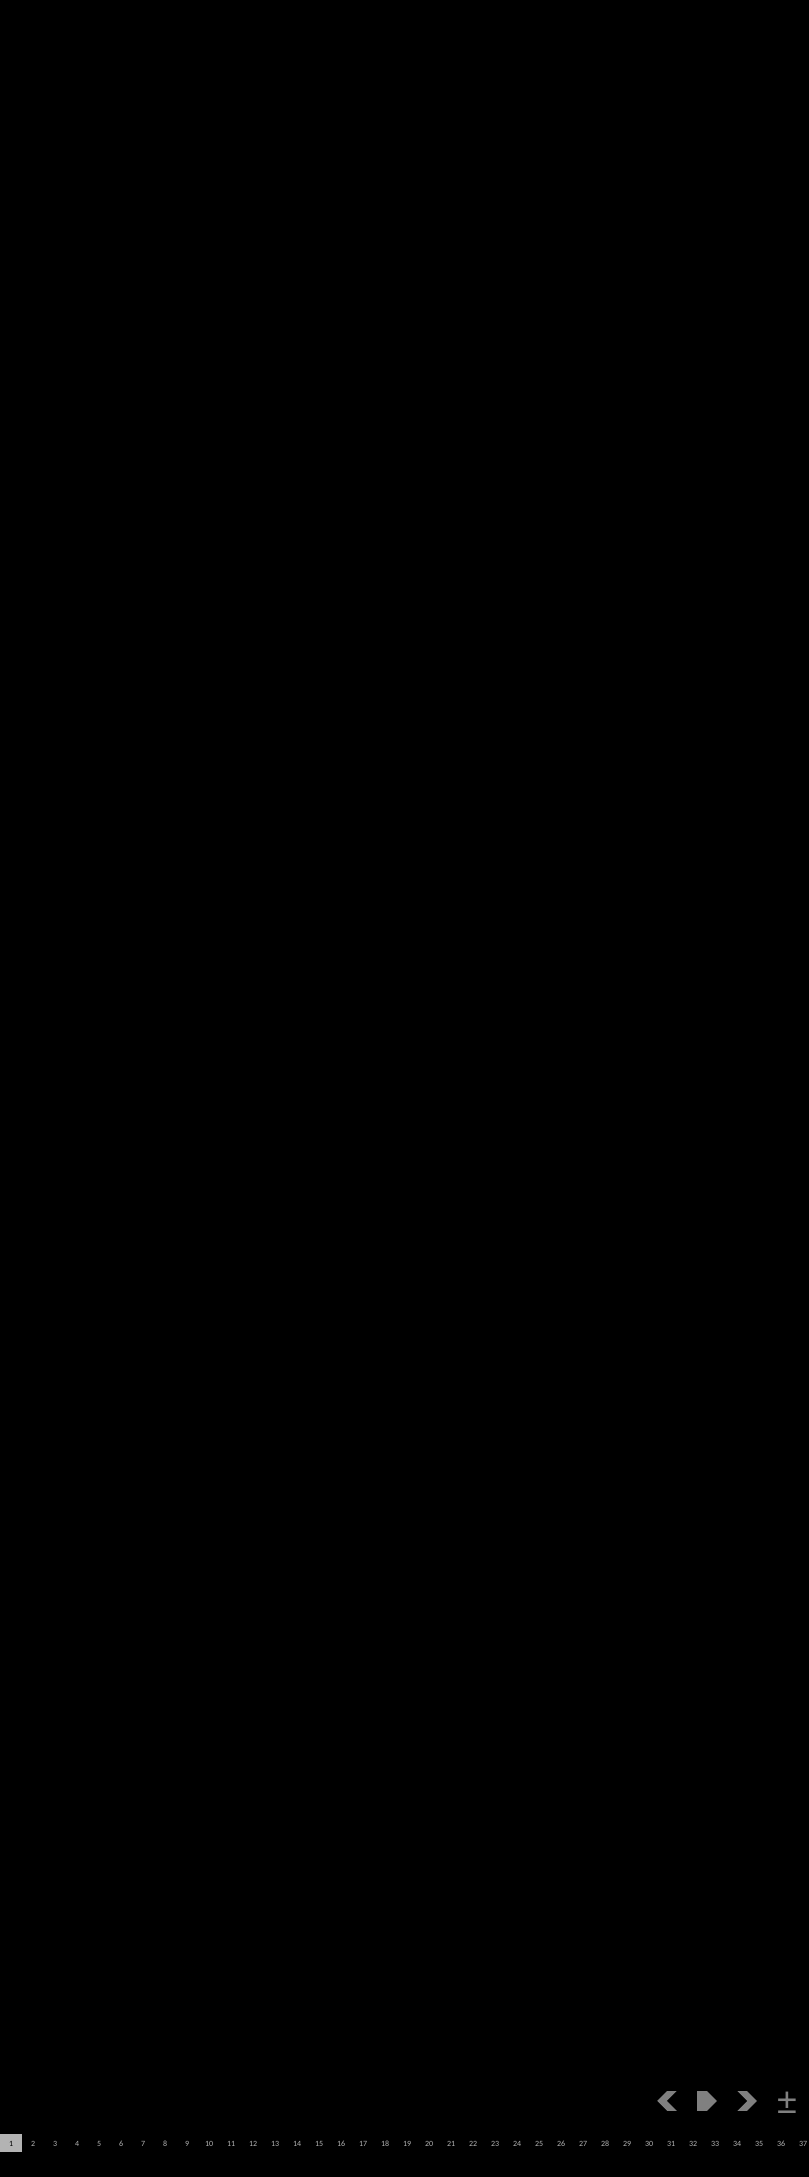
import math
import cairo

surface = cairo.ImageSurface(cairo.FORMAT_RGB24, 809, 2177)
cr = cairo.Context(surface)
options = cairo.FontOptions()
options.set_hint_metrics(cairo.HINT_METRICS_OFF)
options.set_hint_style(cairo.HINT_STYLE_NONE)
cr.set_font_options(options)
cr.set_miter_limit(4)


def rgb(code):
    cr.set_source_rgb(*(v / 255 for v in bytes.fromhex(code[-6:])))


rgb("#000000")
cr.paint()
rgb("#808080")
cr.new_path()
cr.move_to(667, 2091)
cr.line_to(667, 2111)
cr.line_to(657, 2101)
cr.close_path()
cr.fill()
rgb("#000000")
cr.new_path()
cr.move_to(667, 2111)
cr.line_to(657, 2111)
cr.line_to(657, 2101)
cr.close_path()
cr.fill()
rgb("#808080")
cr.new_path()
cr.move_to(667, 2091)
cr.line_to(677, 2091)
cr.line_to(667, 2101)
cr.close_path()
cr.fill()
rgb("#000000")
cr.new_path()
cr.move_to(677, 2091)
cr.line_to(677, 2111)
cr.line_to(667, 2101)
cr.close_path()
cr.fill()
rgb("#808080")
cr.new_path()
cr.move_to(677, 2111)
cr.line_to(667, 2111)
cr.line_to(667, 2101)
cr.close_path()
cr.fill()
cr.rectangle(697, 2091, 10, 20)
cr.fill()
cr.new_path()
cr.move_to(707, 2111)
cr.line_to(707, 2091)
cr.line_to(717, 2101)
cr.close_path()
cr.move_to(737, 2091)
cr.line_to(747, 2091)
cr.line_to(747, 2101)
cr.close_path()
cr.fill()
cr.new_path()
cr.move_to(747, 2111)
cr.line_to(737, 2111)
cr.line_to(747, 2101)
cr.close_path()
cr.fill()
rgb("#000000")
cr.new_path()
cr.move_to(737, 2111)
cr.line_to(737, 2091)
cr.line_to(747, 2101)
cr.close_path()
cr.fill()
rgb("#808080")
cr.new_path()
cr.move_to(747, 2111)
cr.line_to(747, 2091)
cr.line_to(757, 2101)
cr.close_path()
cr.fill()
rgb("#b3b3b3")
cr.rectangle(0, 2134, 22, 18)
cr.fill()
cr.select_font_face("Liberation Sans")
cr.set_font_size(36)
rgb("#808080")
cr.move_to(777, 2113)
cr.show_text("±")
cr.select_font_face("Carlito")
cr.set_font_size(8)
rgb("#000000")
cr.move_to(9, 2146)
cr.show_text("1")
rgb("#b3b3b3")
for x, y, s in [
    (31, 2146, "2"),
    (53, 2146, "3"),
    (75, 2146, "4"),
    (97, 2146, "5"),
    (119, 2146, "6"),
    (141, 2146, "7"),
    (163, 2146, "8"),
    (185, 2146, "9"),
    (205, 2146, "10"),
    (227, 2146, "11"),
    (249, 2146, "12"),
    (271, 2146, "13"),
    (293, 2146, "14"),
    (315, 2146, "15"),
    (337, 2146, "16"),
    (359, 2146, "17"),
    (381, 2146, "18"),
    (403, 2146, "19"),
    (425, 2146, "20"),
    (447, 2146, "21"),
    (469, 2146, "22"),
    (491, 2146, "23"),
    (513, 2146, "24"),
    (535, 2146, "25"),
    (557, 2146, "26"),
    (579, 2146, "27"),
    (601, 2146, "28"),
    (623, 2146, "29"),
    (645, 2146, "30"),
    (667, 2146, "31"),
    (689, 2146, "32"),
    (711, 2146, "33"),
    (733, 2146, "34"),
    (755, 2146, "35"),
    (777, 2146, "36"),
    (799, 2146, "37"),
]:
    cr.move_to(x, y)
    cr.show_text(s)
surface.write_to_png("page.png")
